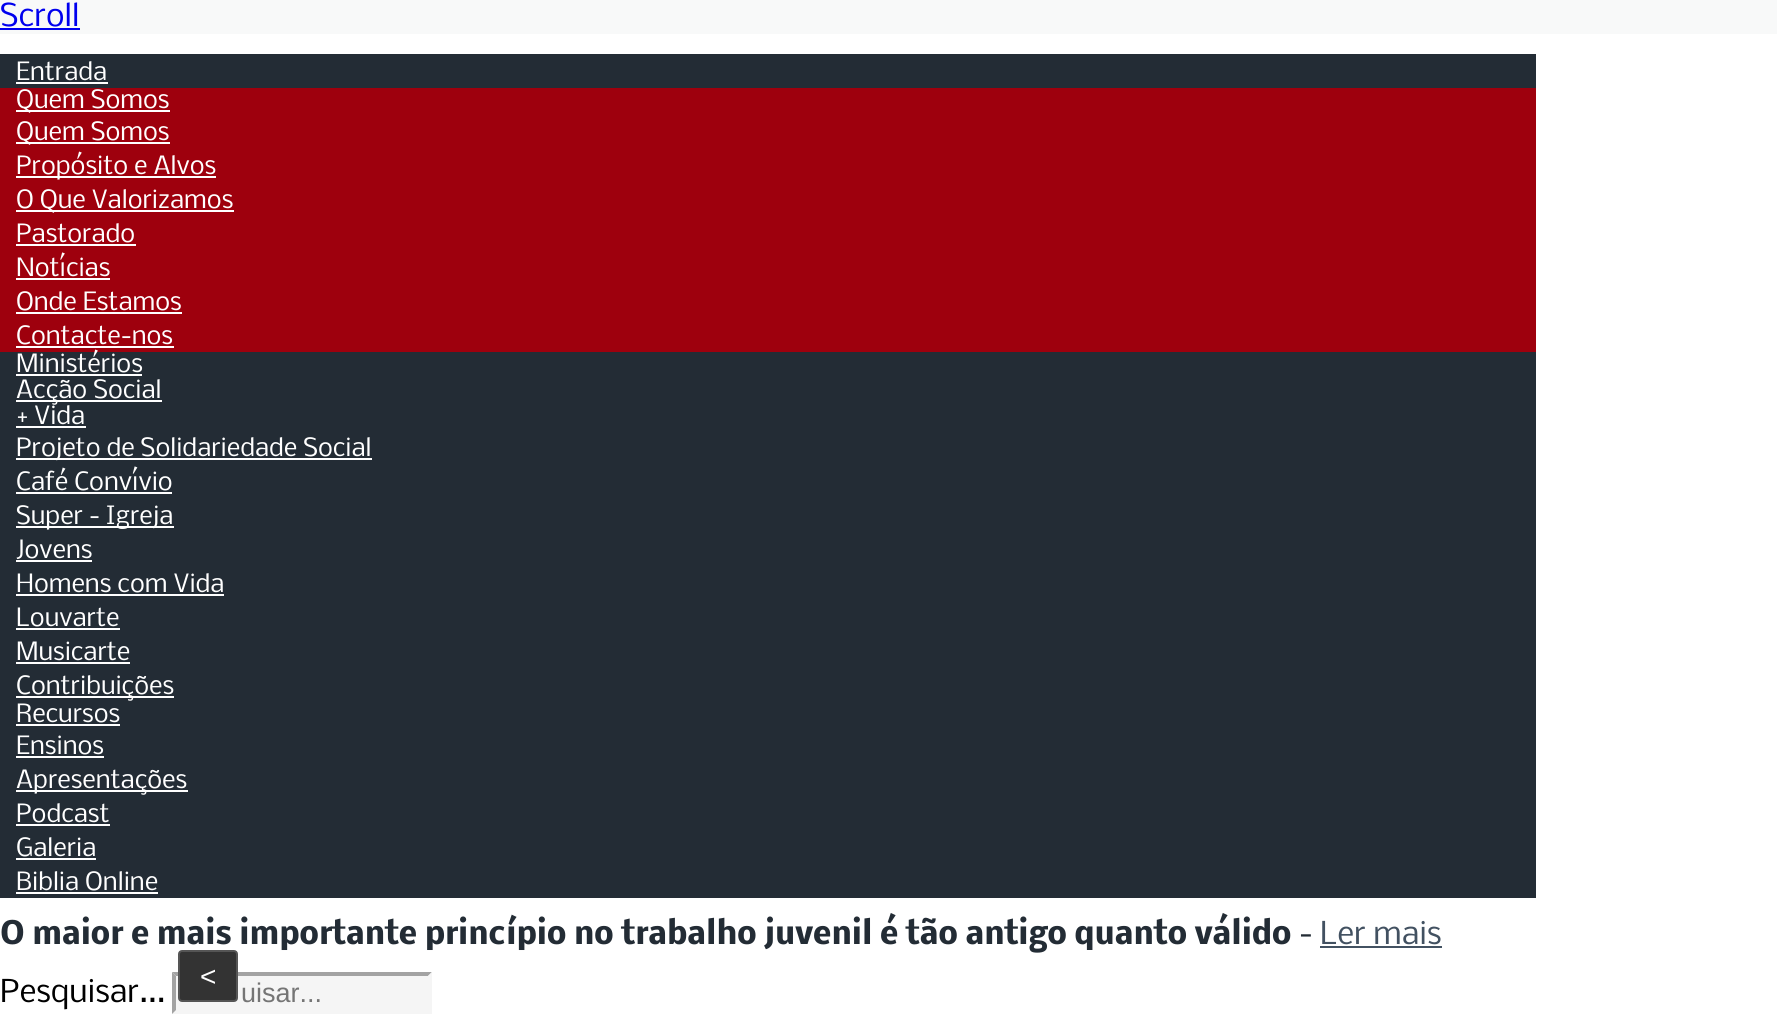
import math
import cairo

surface = cairo.ImageSurface(cairo.FORMAT_RGB24, 1777, 1032)
cr = cairo.Context(surface)
options = cairo.FontOptions()
options.set_hint_metrics(cairo.HINT_METRICS_OFF)
options.set_hint_style(cairo.HINT_STYLE_NONE)
cr.set_font_options(options)
cr.set_miter_limit(4)


def rgb(code):
    cr.set_source_rgb(*(v / 255 for v in bytes.fromhex(code[-6:])))


def rrect(x, y, w, h, r):
    cr.new_sub_path()
    for i, (u, v) in enumerate([(x + w - r, y + h - r), (x + r, y + h - r), (x + r, y + r), (x + w - r, y + r)]):
        cr.arc(u, v, r, i * math.pi / 2, (i + 1) * math.pi / 2)
    cr.close_path()


rgb("#f8f9f9")
cr.paint()
for x, y, w, h, color in [
    (0, 28, 80, 2, "#0000ee"),
    (0, 34, 1777, 998, "#ffffff"),
    (0, 54, 1536, 844, "#232c35"),
    (16, 82, 92, 2, "#ffffff"),
    (0, 88, 1536, 264, "#9e000d"),
    (16, 110, 154, 2, "#ffffff"),
    (16, 142, 154, 2, "#ffffff"),
    (16, 176, 200, 2, "#ffffff"),
    (16, 210, 218, 2, "#ffffff"),
    (16, 244, 120, 2, "#ffffff"),
    (16, 278, 94, 2, "#ffffff"),
    (16, 312, 166, 2, "#ffffff"),
    (16, 346, 158, 2, "#ffffff"),
    (16, 374, 126, 2, "#ffffff"),
    (16, 400, 146, 2, "#ffffff"),
    (16, 426, 70, 2, "#ffffff"),
    (16, 458, 356, 2, "#ffffff"),
    (16, 492, 156, 2, "#ffffff"),
    (16, 526, 158, 2, "#ffffff"),
    (16, 560, 76, 2, "#ffffff"),
    (16, 594, 208, 2, "#ffffff"),
    (16, 628, 104, 2, "#ffffff"),
    (16, 662, 114, 2, "#ffffff"),
    (16, 696, 158, 2, "#ffffff"),
    (16, 724, 104, 2, "#ffffff"),
    (16, 756, 88, 2, "#ffffff"),
    (16, 790, 172, 2, "#ffffff"),
    (16, 824, 94, 2, "#ffffff"),
    (16, 858, 80, 2, "#ffffff"),
    (16, 892, 142, 2, "#ffffff"),
    (1320, 946, 122, 2, "#425161"),
    (172, 972, 260, 42, "#f5f5f5"),
]:
    rgb(color)
    cr.rectangle(x, y, w, h)
    cr.fill()
rgb("#a3a3a3")
cr.new_path()
cr.move_to(172, 972)
cr.line_to(432, 972)
cr.line_to(428, 976)
cr.line_to(176, 976)
cr.close_path()
cr.fill()
rgb("#f5f5f5")
cr.new_path()
cr.move_to(432, 972)
cr.line_to(432, 1014)
cr.line_to(428, 1010)
cr.line_to(428, 976)
cr.close_path()
cr.fill()
rgb("#a3a3a3")
cr.new_path()
cr.move_to(172, 1014)
cr.line_to(172, 972)
cr.line_to(176, 976)
cr.line_to(176, 1010)
cr.close_path()
cr.fill()
cr.select_font_face("Nobile")
cr.set_font_size(30)
rgb("#0000ee")
cr.move_to(0, 26)
cr.show_text("Scroll")
cr.set_font_size(24)
rgb("#ffffff")
for x, y, s in [
    (16, 80, "Entrada"),
    (16, 108, "Quem Somos"),
    (16, 140, "Quem Somos"),
    (16, 174, "Propósito e Alvos"),
    (16, 208, "O Que Valorizamos"),
    (16, 242, "Pastorado"),
    (16, 276, "Notícias"),
    (16, 310, "Onde Estamos"),
    (16, 344, "Contacte-nos"),
    (16, 372, "Ministérios"),
    (16, 398, "Acção Social"),
    (16, 424, "+ Vida"),
    (16, 456, "Projeto de Solidariedade Social"),
    (16, 490, "Café Convívio"),
    (16, 524, "Super - Igreja"),
    (16, 558, "Jovens"),
    (16, 592, "Homens com Vida"),
    (16, 626, "Louvarte"),
    (16, 660, "Musicarte"),
    (16, 694, "Contribuições"),
    (16, 722, "Recursos"),
    (16, 754, "Ensinos"),
    (16, 788, "Apresentações"),
    (16, 822, "Podcast"),
    (16, 856, "Galeria"),
    (16, 890, "Biblia Online"),
]:
    cr.move_to(x, y)
    cr.show_text(s)
cr.select_font_face("Nobile", cairo.FONT_SLANT_NORMAL, cairo.FONT_WEIGHT_BOLD)
cr.set_font_size(30)
rgb("#232c35")
cr.move_to(0, 944)
cr.show_text("O maior e mais importante princípio no trabalho juvenil é tão antigo quanto válido")
cr.select_font_face("Nobile")
cr.move_to(1299, 944)
cr.show_text("-")
rgb("#425161")
cr.move_to(1320, 944)
cr.show_text("Ler mais")
rgb("#000000")
cr.move_to(0, 1002)
cr.show_text("Pesquisar...")
cr.select_font_face("Liberation Sans")
cr.set_font_size(27)
rgb("#757575")
cr.move_to(241, 1002)
cr.show_text("uisar...")
rgb("#333333")
rrect(179, 951, 58, 50, 3)
cr.fill_preserve()
rgb("#555555")
cr.stroke()
cr.set_font_size(28)
rgb("#ffffff")
cr.move_to(200, 986)
cr.show_text("<")
surface.write_to_png("page.png")
